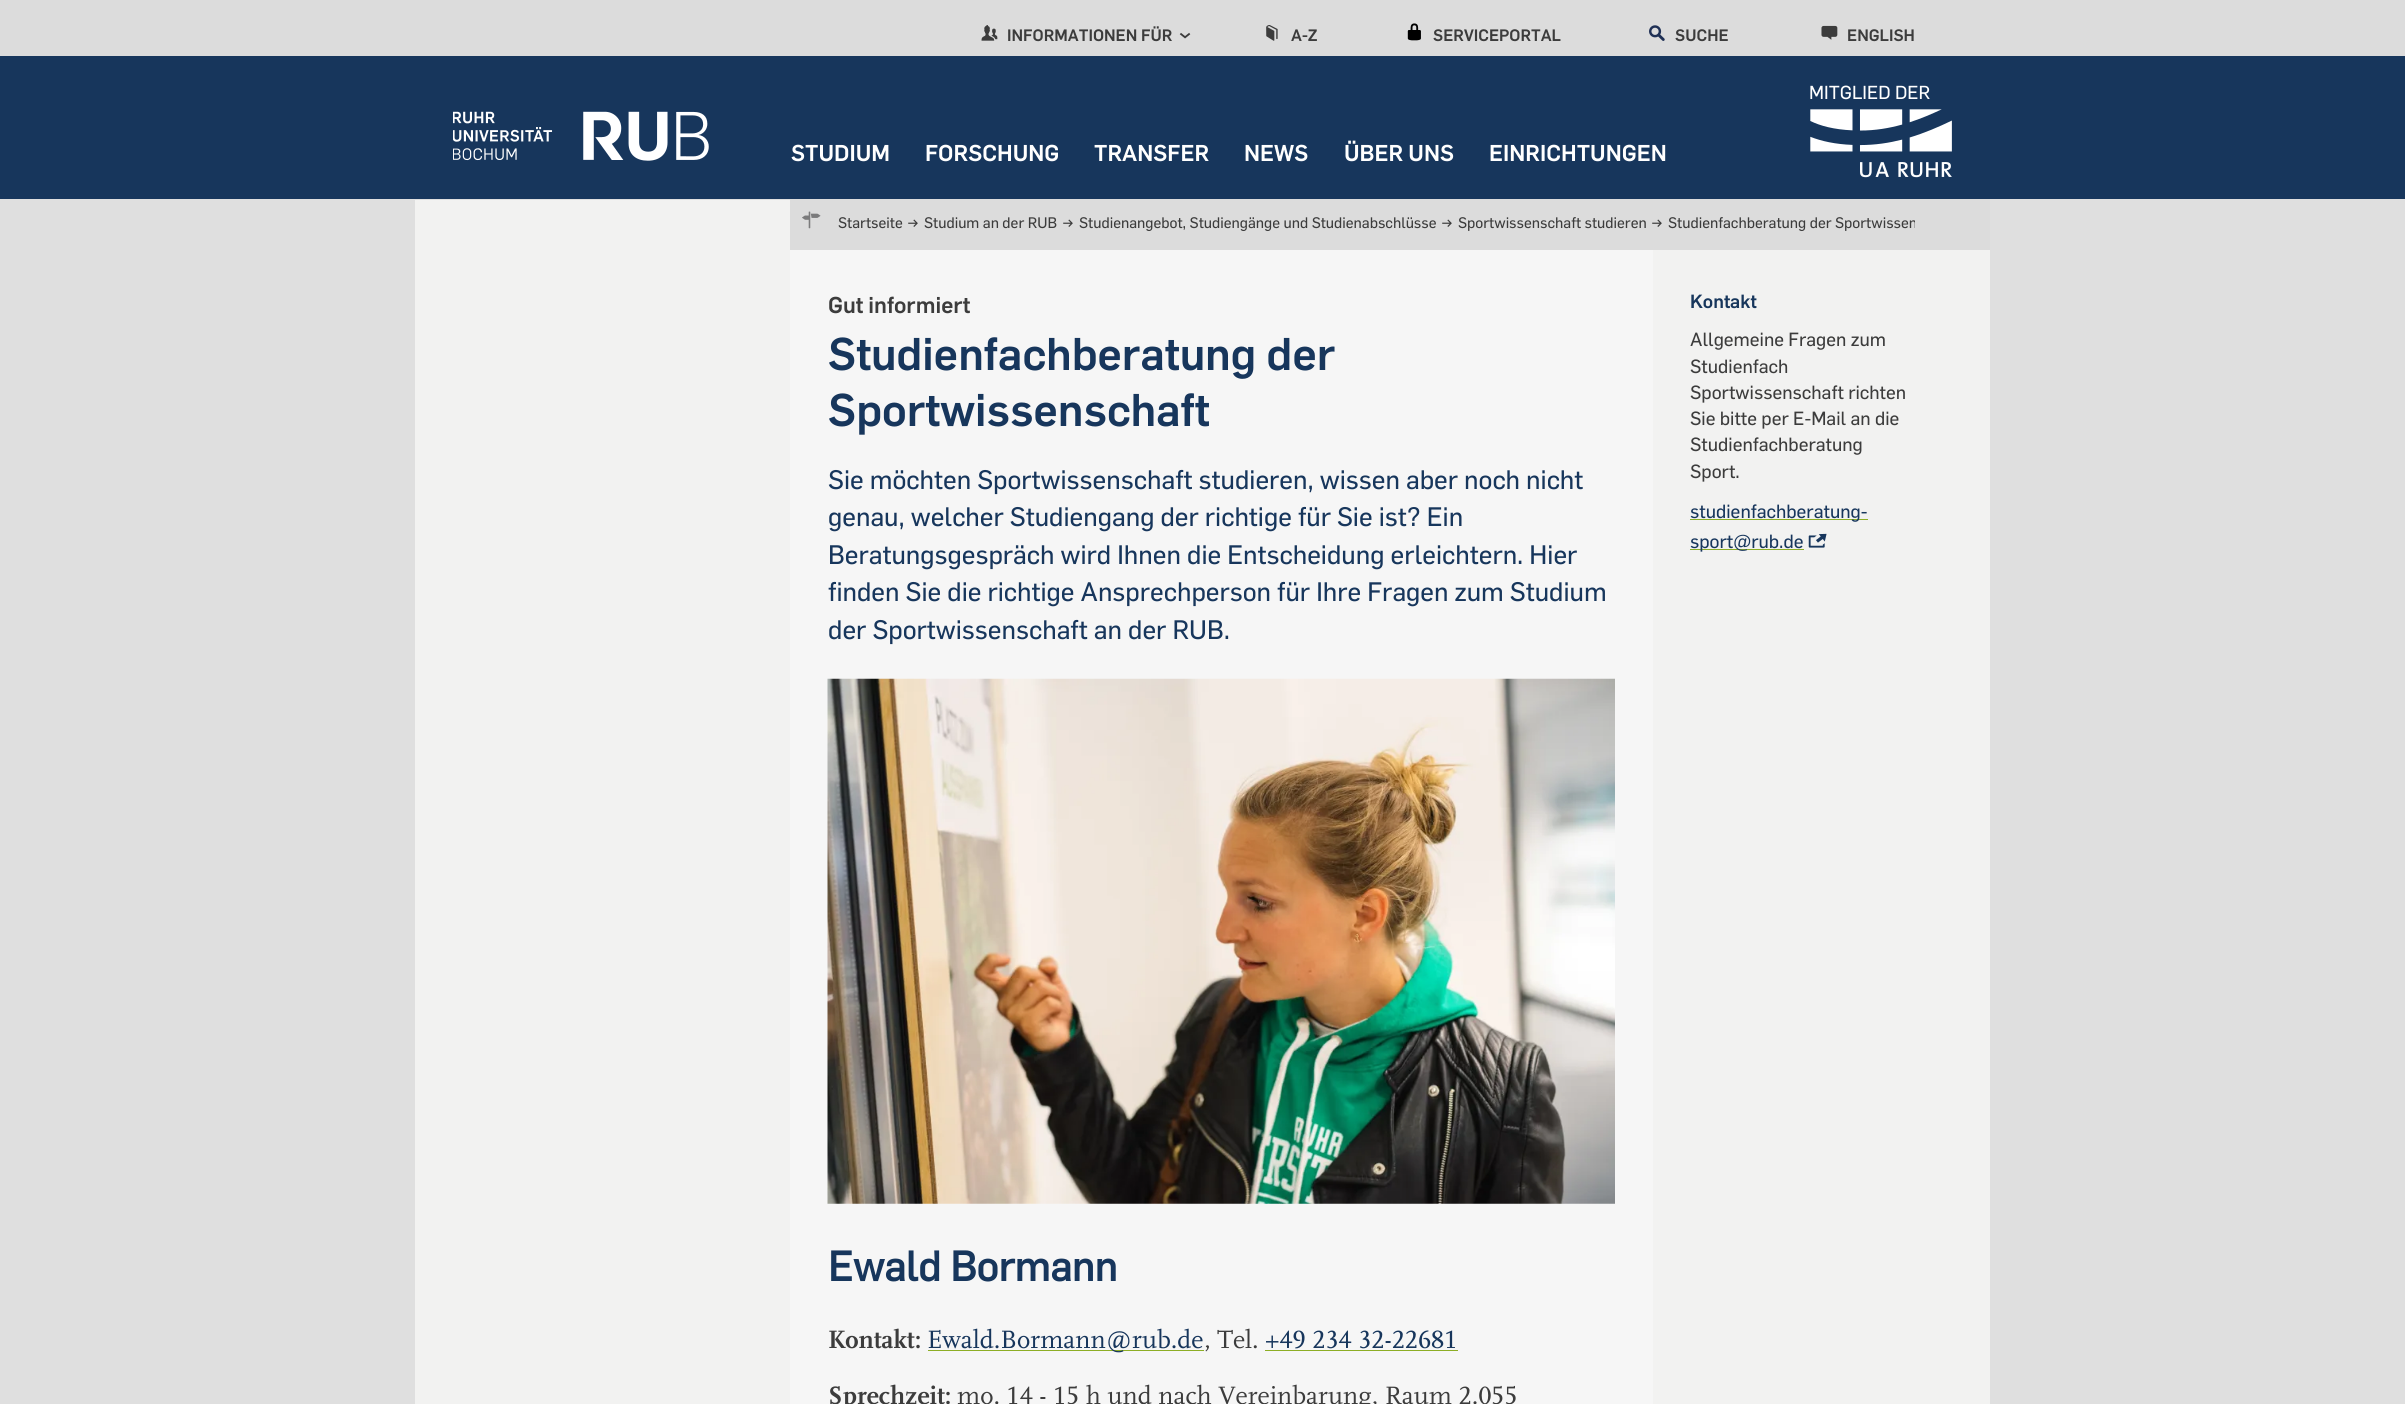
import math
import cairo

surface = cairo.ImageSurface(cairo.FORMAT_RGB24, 2405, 1404)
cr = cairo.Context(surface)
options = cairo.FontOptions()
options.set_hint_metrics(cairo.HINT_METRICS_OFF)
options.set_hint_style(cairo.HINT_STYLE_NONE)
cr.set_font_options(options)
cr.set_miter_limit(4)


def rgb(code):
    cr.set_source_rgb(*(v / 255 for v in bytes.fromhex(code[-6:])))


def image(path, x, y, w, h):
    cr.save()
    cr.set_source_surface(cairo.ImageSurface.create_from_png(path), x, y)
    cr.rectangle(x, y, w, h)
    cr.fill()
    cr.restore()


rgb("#dfdfdf")
cr.paint()
rgb("#dcdcdc")
cr.rectangle(0, 0, 2405, 56)
cr.fill()
image("img/1.png", 981, 25, 17, 16)
image("img/2.png", 1179, 32, 12, 7)
image("img/3.png", 1266, 25, 12, 16)
image("img/4.png", 1407, 23, 14, 18)
image("img/5.png", 1649, 25, 16, 16)
image("img/6.png", 1821, 25, 17, 15)
rgb("#17365c")
cr.rectangle(0, 56, 2405, 143)
cr.fill()
image("img/7.png", 1810, 109, 142, 69)
image("img/8.png", 453, 111, 256, 50)
rgb("#dcdcdc")
cr.rectangle(790, 199, 1200, 51)
cr.fill()
image("img/9.png", 802, 211, 19, 18)
rgb("#f2f2f1")
cr.rectangle(415, 200, 375, 1204)
cr.fill()
rgb("#f6f6f6")
cr.rectangle(790, 250, 863, 1154)
cr.fill()
image("img/10.png", 827, 678, 788, 526)
for x, y, w, h, color in [
    (928, 1350, 276, 1, "#8dae25"),
    (1265, 1350, 193, 1, "#8dae25"),
    (1653, 250, 337, 1154, "#f2f2f1"),
    (1690, 519, 178, 1, "#8dae25"),
    (1690, 549, 114, 1, "#8dae25"),
]:
    rgb(color)
    cr.rectangle(x, y, w, h)
    cr.fill()
image("img/11.png", 1808, 533, 19, 15)
cr.select_font_face("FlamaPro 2 Medium")
cr.set_font_size(16.25)
rgb("#3c3c3c")
for x, y, s in [
    (1007, 41, "INFORMATIONEN FÜR"),
    (1291, 41, "A-Z"),
    (1433, 41, "SERVICEPORTAL"),
    (1675, 41, "SUCHE"),
    (1847, 41, "ENGLISH"),
]:
    cr.move_to(x, y)
    cr.show_text(s)
cr.select_font_face("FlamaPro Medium")
cr.set_font_size(18.5)
rgb("#ffffff")
cr.move_to(1809, 99)
cr.show_text("MITGLIED DER")
cr.select_font_face("FlamaPro 2 Medium")
cr.set_font_size(22.5)
for x, y, s in [
    (791, 161, "STUDIUM"),
    (925, 161, "FORSCHUNG"),
    (1094, 161, "TRANSFER"),
    (1244, 161, "NEWS"),
    (1344, 161, "ÜBER UNS"),
    (1489, 161, "EINRICHTUNGEN"),
]:
    cr.move_to(x, y)
    cr.show_text(s)
cr.select_font_face("FlamaPro Medium")
cr.set_font_size(15)
rgb("#3c3c3c")
cr.move_to(838, 228)
cr.show_text("Startseite")
cr.select_font_face("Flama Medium")
cr.set_font_size(16.25)
cr.move_to(907, 229)
cr.show_text("→")
cr.select_font_face("FlamaPro Medium")
cr.set_font_size(15)
cr.move_to(924, 228)
cr.show_text("Studium an der RUB")
cr.select_font_face("Flama Medium")
cr.set_font_size(16.25)
cr.move_to(1062, 229)
cr.show_text("→")
cr.select_font_face("FlamaPro Medium")
cr.set_font_size(15)
cr.move_to(1079, 228)
cr.show_text("Studienangebot, Studiengänge und Studienabschlüsse")
cr.select_font_face("Flama Medium")
cr.set_font_size(16.25)
cr.move_to(1441, 229)
cr.show_text("→")
cr.select_font_face("FlamaPro Medium")
cr.set_font_size(15)
cr.move_to(1458, 228)
cr.show_text("Sportwissenschaft studieren")
cr.select_font_face("Flama Medium")
cr.set_font_size(16.25)
cr.move_to(1651, 229)
cr.show_text("→")
cr.save()
cr.rectangle(835, 206, 1080, 37)
cr.clip()
cr.select_font_face("FlamaPro Medium")
cr.set_font_size(15)
cr.move_to(1668, 228)
cr.show_text("Studienfachberatung der Sportwissen")
cr.restore()
cr.select_font_face("FlamaPro 2 Medium")
cr.set_font_size(22.5)
cr.move_to(828, 313)
cr.show_text("Gut informiert")
cr.set_font_size(45)
rgb("#17365c")
cr.move_to(828, 370)
cr.show_text("Studienfachberatung der")
cr.move_to(828, 426)
cr.show_text("Sportwissenschaft")
cr.select_font_face("FlamaPro Medium")
cr.set_font_size(26.25)
for x, y, s in [
    (828, 489, "Sie möchten Sportwissenschaft studieren, wissen aber noch nicht"),
    (828, 526, "genau, welcher Studiengang der richtige für Sie ist? Ein"),
    (828, 564, "Beratungsgespräch wird Ihnen die Entscheidung erleichtern. Hier"),
    (828, 601, "finden Sie die richtige Ansprechperson für Ihre Fragen zum Studium"),
    (828, 639, "der Sportwissenschaft an der RUB."),
]:
    cr.move_to(x, y)
    cr.show_text(s)
cr.select_font_face("FlamaPro", cairo.FONT_SLANT_NORMAL, cairo.FONT_WEIGHT_BOLD)
cr.set_font_size(41.25)
cr.move_to(828, 1281)
cr.show_text("Ewald Bormann")
cr.select_font_face("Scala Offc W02", cairo.FONT_SLANT_NORMAL, cairo.FONT_WEIGHT_BOLD)
cr.set_font_size(26.25)
rgb("#3c3c3c")
cr.move_to(828, 1348)
cr.show_text("Kontakt:")
cr.select_font_face("Scala Offc W02")
rgb("#17365c")
cr.move_to(927, 1348)
cr.show_text("Ewald.Bormann@rub.de")
rgb("#3c3c3c")
cr.move_to(1204, 1348)
cr.show_text(", Tel.")
rgb("#17365c")
cr.move_to(1265, 1348)
cr.show_text("+49 234 32-22681")
cr.select_font_face("Scala Offc W02", cairo.FONT_SLANT_NORMAL, cairo.FONT_WEIGHT_BOLD)
rgb("#3c3c3c")
cr.move_to(828, 1404)
cr.show_text("Sprechzeit:")
cr.select_font_face("Scala Offc W02")
cr.move_to(957, 1404)
cr.show_text("mo. 14 - 15 h und nach Vereinbarung, Raum 2.055")
cr.select_font_face("FlamaPro 2 Medium")
cr.set_font_size(18.75)
rgb("#17365c")
cr.move_to(1690, 308)
cr.show_text("Kontakt")
cr.select_font_face("FlamaPro Medium")
rgb("#3c3c3c")
for x, y, s in [
    (1690, 346, "Allgemeine Fragen zum"),
    (1690, 373, "Studienfach"),
    (1690, 399, "Sportwissenschaft richten"),
    (1690, 425, "Sie bitte per E-Mail an die"),
    (1690, 451, "Studienfachberatung"),
    (1690, 478, "Sport."),
]:
    cr.move_to(x, y)
    cr.show_text(s)
rgb("#17365c")
cr.move_to(1690, 518)
cr.show_text("studienfachberatung-")
cr.move_to(1690, 548)
cr.show_text("sport@rub.de")
surface.write_to_png("page.png")
